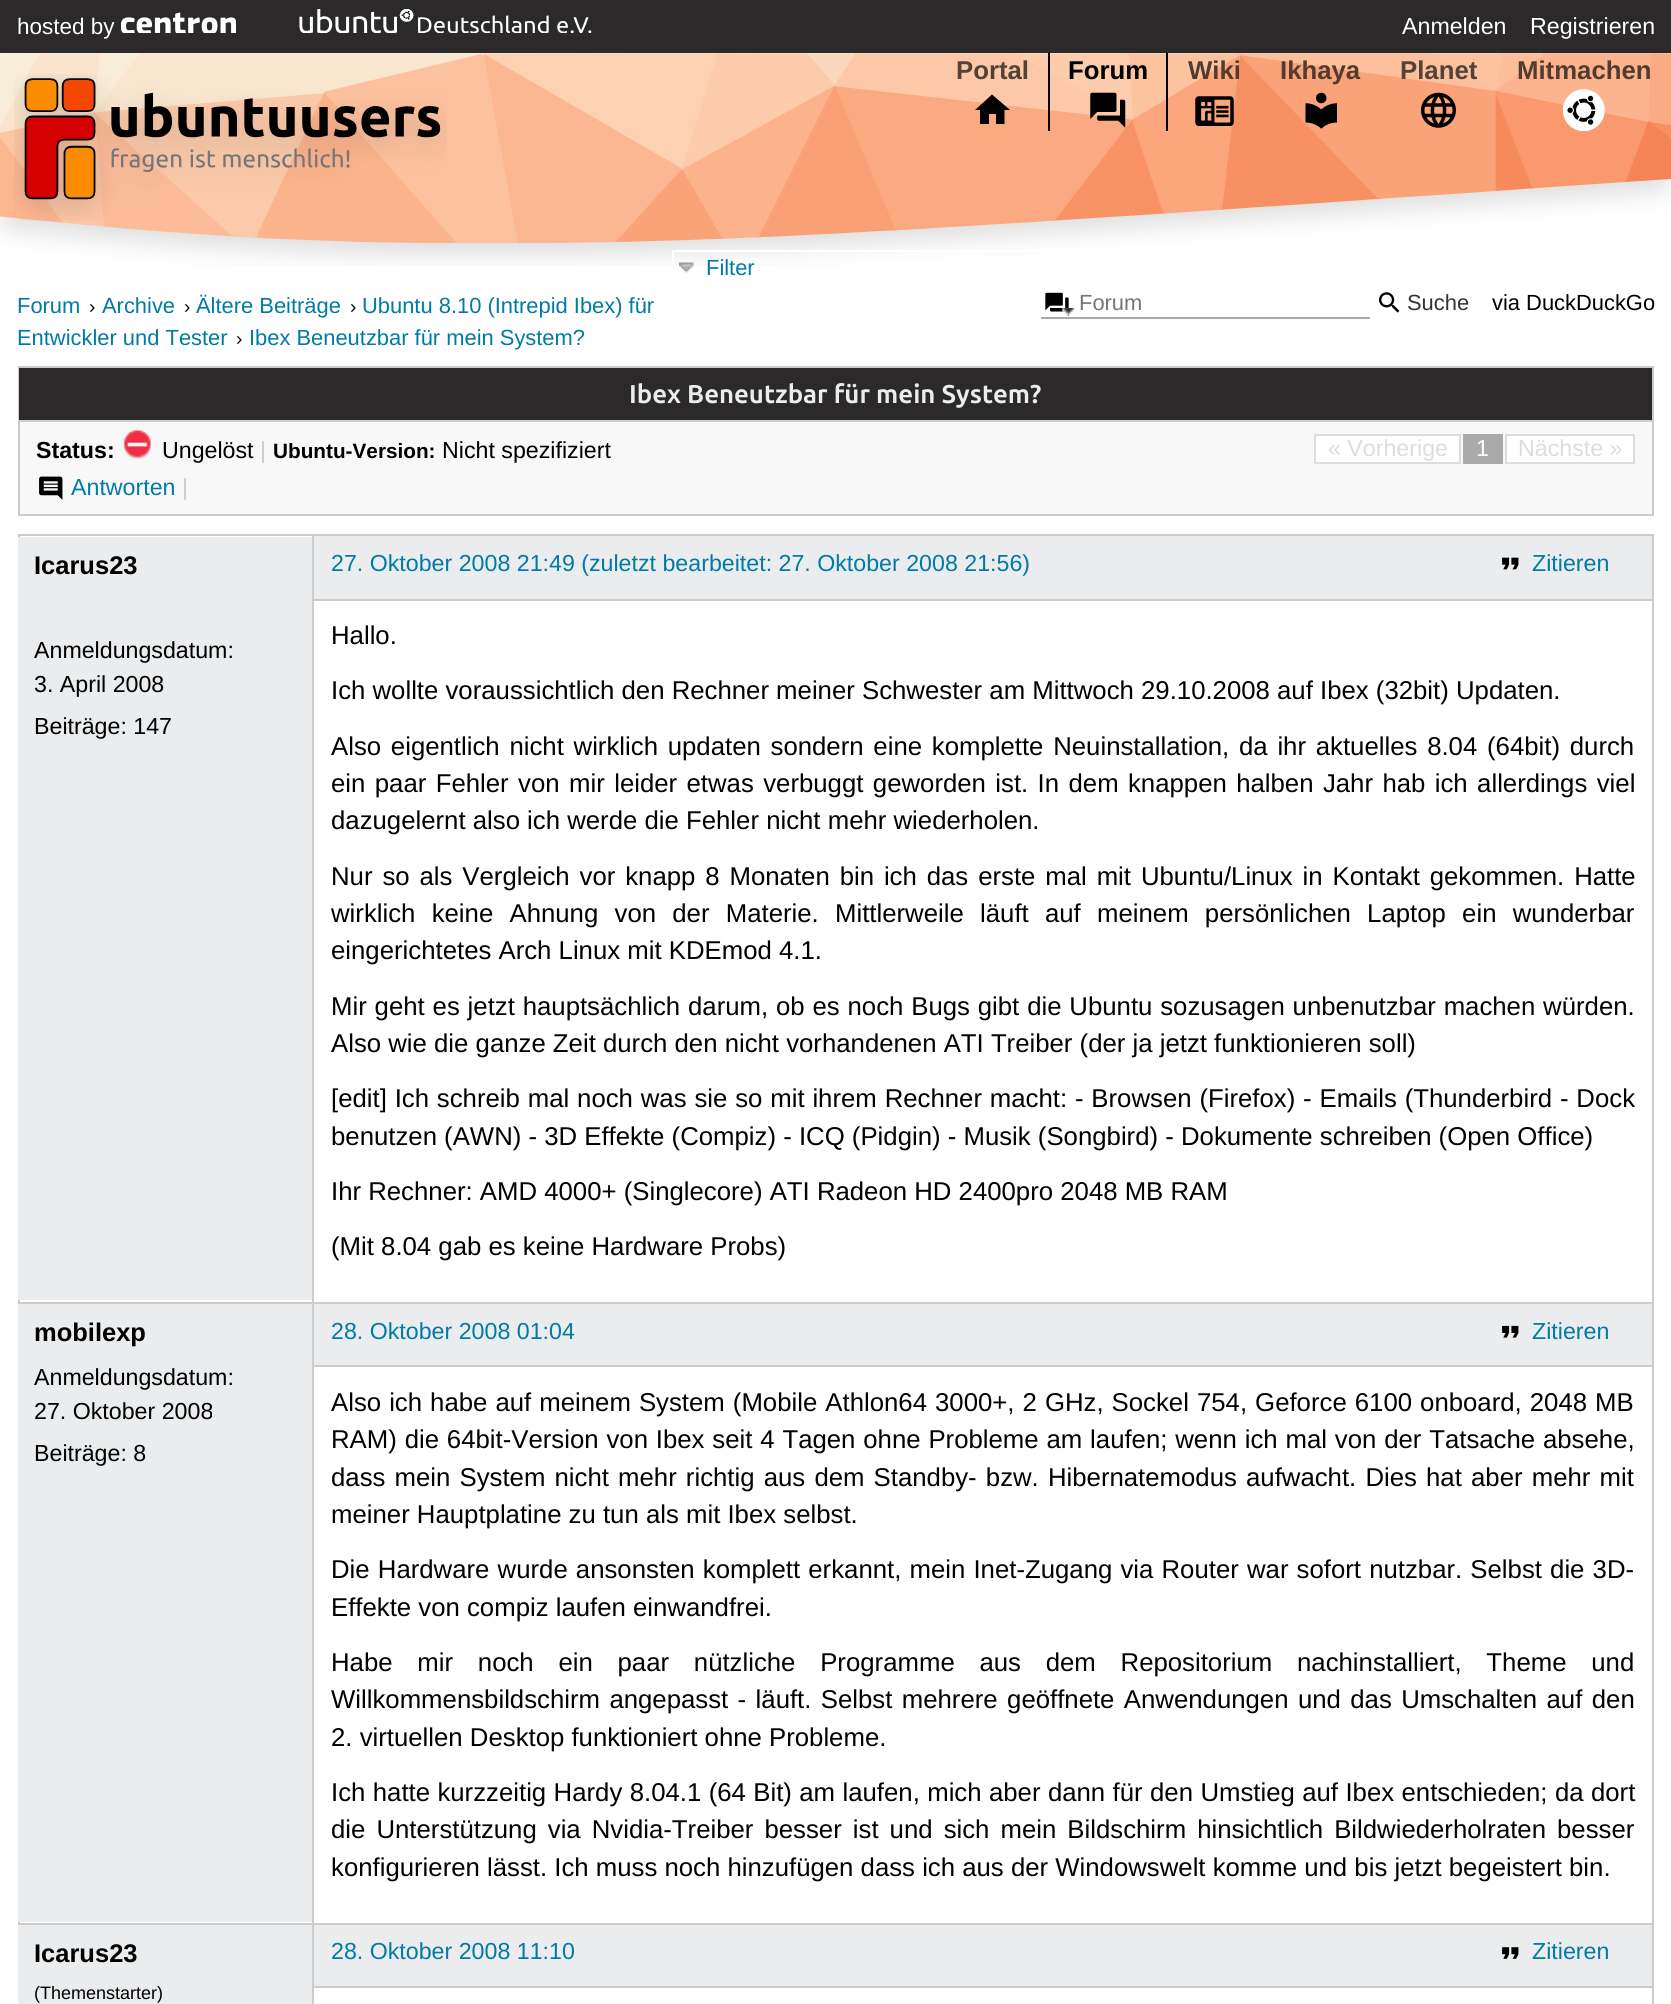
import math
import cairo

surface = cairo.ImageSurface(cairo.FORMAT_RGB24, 1671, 2004)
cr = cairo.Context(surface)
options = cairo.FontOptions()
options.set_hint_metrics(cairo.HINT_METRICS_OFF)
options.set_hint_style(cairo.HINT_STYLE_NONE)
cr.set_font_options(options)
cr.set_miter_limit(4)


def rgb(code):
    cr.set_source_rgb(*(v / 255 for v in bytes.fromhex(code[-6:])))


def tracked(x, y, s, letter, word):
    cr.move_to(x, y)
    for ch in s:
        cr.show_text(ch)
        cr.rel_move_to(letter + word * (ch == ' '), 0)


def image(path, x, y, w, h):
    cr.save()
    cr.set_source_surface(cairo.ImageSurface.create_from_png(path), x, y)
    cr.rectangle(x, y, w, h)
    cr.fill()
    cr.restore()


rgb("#ffffff")
cr.paint()
rgb("#2b2929")
cr.rectangle(0, 0, 1671, 53)
cr.fill()
image("img/1.png", 121, 12, 115, 21)
image("img/2.png", 299, 9, 293, 24)
image("img/3.png", 0, 53, 1671, 213)
image("img/4.png", 14, 74, 433, 147)
rgb("#000000")
cr.new_path()
cr.move_to(989, 124)
cr.line_to(989, 114)
cr.line_to(996, 114)
cr.line_to(996, 124)
cr.line_to(1004.5, 124)
cr.line_to(1004.5, 110)
cr.line_to(1010, 110)
cr.line_to(992, 94.5)
cr.line_to(975, 110)
cr.line_to(980, 110)
cr.line_to(980, 124)
cr.close_path()
cr.fill()
cr.rectangle(1166, 53, 2, 78)
cr.fill()
cr.rectangle(1048, 53, 2, 78)
cr.fill()
image("img/5.png", 1090, 92, 36, 36)
image("img/6.png", 1195, 96, 39, 30)
image("img/7.png", 1305, 92, 32, 37)
image("img/8.png", 1421, 92, 35, 36)
image("img/9.png", 1563, 89, 42, 42)
cr.rectangle(673, 251, 422, 39)
rgb("#ffffff")
cr.stroke()
image("img/10.png", 679, 262, 16, 11)
image("img/12.png", 1045, 292, 24, 24)
image("img/11.png", 1061, 308, 14, 7)
rgb("#aaaaaa")
cr.rectangle(1041, 317, 329, 2)
cr.fill()
image("img/13.png", 1379, 292, 21, 21)
rgb("#f8f8f8")
cr.rectangle(20, 422, 1632, 92)
cr.fill()
cr.rectangle(19, 367, 1634, 148)
rgb("#cccccc")
cr.stroke()
rgb("#2b2929")
cr.rectangle(19, 368, 1633, 52)
cr.fill()
rgb("#cccccc")
cr.rectangle(19, 420, 1633, 2)
cr.fill()
image("img/14.png", 123, 430, 28, 29)
rgb("#ffffff")
cr.rectangle(1315, 435, 145, 28)
cr.fill_preserve()
rgb("#dddddd")
cr.stroke()
rgb("#aaaaaa")
cr.rectangle(1463, 434, 40, 30)
cr.fill()
rgb("#ffffff")
cr.rectangle(1506, 435, 128, 28)
cr.fill_preserve()
rgb("#dddddd")
cr.stroke()
image("img/15.png", 39, 476, 24, 24)
for x, y, w, h, color in [
    (18, 534, 1636, 2, "#cccccc"),
    (1652, 534, 2, 1470, "#cccccc"),
    (18, 534, 2, 1389, "#cccccc"),
    (18, 537, 294, 763, "#eaecee"),
    (314, 536, 1338, 63, "#eaecee"),
    (313, 599, 1339, 2, "#cccccc"),
]:
    rgb(color)
    cr.rectangle(x, y, w, h)
    cr.fill()
image("img/16.png", 1502, 557, 17, 13)
for x, y, w, h, color in [
    (18, 1302, 1636, 2, "#cccccc"),
    (313, 1365, 1339, 2, "#cccccc"),
    (18, 1923, 1636, 2, "#cccccc"),
    (313, 1986, 1339, 2, "#cccccc"),
    (312, 1923, 2, 81, "#cccccc"),
    (312, 534, 2, 1391, "#cccccc"),
    (18, 1304, 294, 618, "#eaecee"),
    (314, 1304, 1338, 61, "#eaecee"),
]:
    rgb(color)
    cr.rectangle(x, y, w, h)
    cr.fill()
image("img/17.png", 1502, 1325, 17, 13)
cr.rectangle(18, 1925, 294, 79)
cr.fill()
cr.rectangle(314, 1925, 1338, 61)
cr.fill()
image("img/18.png", 1502, 1947, 17, 12)
cr.select_font_face("Liberation Sans")
cr.set_font_size(22.5)
rgb("#ffffff")
cr.move_to(17, 34)
cr.show_text("hosted by")
cr.set_font_size(23.2)
cr.move_to(1402, 34)
cr.show_text("Anmelden")
cr.move_to(1530, 34)
cr.show_text("Registrieren")
cr.select_font_face("Liberation Sans", cairo.FONT_SLANT_NORMAL, cairo.FONT_WEIGHT_BOLD)
cr.set_font_size(25.75)
rgb("#534237")
cr.move_to(956, 79)
cr.show_text("Portal")
rgb("#000000")
cr.move_to(1068, 79)
cr.show_text("Forum")
rgb("#533c2f")
cr.move_to(1188, 79)
cr.show_text("Wiki")
cr.move_to(1280, 79)
cr.show_text("Ikhaya")
rgb("#534237")
cr.move_to(1400, 79)
cr.show_text("Planet")
rgb("#533c2f")
cr.move_to(1517, 79)
cr.show_text("Mitmachen")
cr.select_font_face("Liberation Sans")
cr.set_font_size(21.9)
rgb("#007aa6")
cr.move_to(706, 275)
cr.show_text("Filter")
cr.move_to(17, 313)
cr.show_text("Forum")
cr.set_font_size(19)
rgb("#000000")
cr.move_to(89, 313)
cr.show_text("›")
cr.set_font_size(21.9)
rgb("#007aa6")
cr.move_to(102, 313)
cr.show_text("Archive")
cr.set_font_size(19)
rgb("#000000")
cr.move_to(184, 313)
cr.show_text("›")
cr.set_font_size(21.9)
rgb("#007aa6")
cr.move_to(196, 313)
cr.show_text("Ältere Beiträge")
cr.set_font_size(19)
rgb("#000000")
cr.move_to(350, 313)
cr.show_text("›")
cr.set_font_size(21.9)
rgb("#007aa6")
cr.move_to(362, 313)
cr.show_text("Ubuntu 8.10 (Intrepid Ibex) für")
cr.move_to(17, 345)
cr.show_text("Entwickler und Tester")
cr.set_font_size(19)
rgb("#000000")
cr.move_to(236, 345)
cr.show_text("›")
cr.set_font_size(21.9)
rgb("#007aa6")
cr.move_to(249, 345)
cr.show_text("Ibex Beneutzbar für mein System?")
rgb("#757575")
cr.move_to(1079, 310)
cr.show_text("Forum")
rgb("#333333")
cr.move_to(1407, 310)
cr.show_text("Suche")
rgb("#000000")
cr.move_to(1492, 310)
cr.show_text("via DuckDuckGo")
cr.select_font_face("Ubuntu", cairo.FONT_SLANT_NORMAL, cairo.FONT_WEIGHT_BOLD)
cr.set_font_size(25.75)
rgb("#eaecee")
cr.move_to(629, 403)
cr.show_text("Ibex Beneutzbar für mein System?")
cr.select_font_face("Liberation Sans", cairo.FONT_SLANT_NORMAL, cairo.FONT_WEIGHT_BOLD)
cr.set_font_size(23.2)
rgb("#000000")
cr.move_to(36, 458)
cr.show_text("Status:")
cr.select_font_face("Liberation Sans")
cr.move_to(162, 458)
cr.show_text("Ungelöst")
rgb("#cccccc")
cr.move_to(260, 458)
cr.show_text("|")
cr.select_font_face("Liberation Sans", cairo.FONT_SLANT_NORMAL, cairo.FONT_WEIGHT_BOLD)
cr.set_font_size(20.75)
rgb("#000000")
cr.move_to(273, 458)
cr.show_text("Ubuntu-Version:")
cr.select_font_face("Liberation Sans")
cr.set_font_size(23.2)
cr.move_to(442, 458)
cr.show_text("Nicht spezifiziert")
rgb("#dddddd")
cr.move_to(1328, 456)
cr.show_text("« Vorherige")
rgb("#ffffff")
cr.move_to(1476, 456)
cr.show_text("1")
rgb("#dddddd")
cr.move_to(1518, 456)
cr.show_text("Nächste »")
rgb("#007aa6")
cr.move_to(71, 495)
cr.show_text("Antworten")
rgb("#cccccc")
cr.move_to(182, 495)
cr.show_text("|")
cr.select_font_face("Liberation Sans", cairo.FONT_SLANT_NORMAL, cairo.FONT_WEIGHT_BOLD)
cr.set_font_size(25.5)
rgb("#000000")
cr.move_to(34, 574)
cr.show_text("Icarus23")
cr.select_font_face("Liberation Sans")
cr.set_font_size(23.2)
for x, y, s in [
    (34, 658, "Anmeldungsdatum:"),
    (34, 692, "3. April 2008"),
    (34, 734, "Beiträge: 147"),
]:
    cr.move_to(x, y)
    cr.show_text(s)
rgb("#007aa6")
cr.move_to(331, 571)
cr.show_text("27. Oktober 2008 21:49 (zuletzt bearbeitet: 27. Oktober 2008 21:56)")
cr.move_to(1532, 571)
cr.show_text("Zitieren")
cr.set_font_size(25.75)
rgb("#000000")
cr.move_to(331, 644)
cr.show_text("Hallo.")
cr.move_to(331, 699)
cr.show_text("Ich wollte voraussichtlich den Rechner meiner Schwester am Mittwoch 29.10.2008 auf Ibex (32bit) Updaten.")
tracked(331, 755, "Also eigentlich nicht wirklich updaten sondern eine komplette Neuinstallation, da ihr aktuelles 8.04 (64bit) durch", 0, 2.6)
tracked(331, 792, "ein paar Fehler von mir leider etwas verbuggt geworden ist. In dem knappen halben Jahr hab ich allerdings viel", 0, 2.25)
cr.move_to(331, 829)
cr.show_text("dazugelernt also ich werde die Fehler nicht mehr wiederholen.")
tracked(331, 885, "Nur so als Vergleich vor knapp 8 Monaten bin ich das erste mal mit Ubuntu/Linux in Kontakt gekommen. Hatte", 0, 2.75)
tracked(331, 922, "wirklich keine Ahnung von der Materie. Mittlerweile läuft auf meinem persönlichen Laptop ein wunderbar", 0, 9.1)
cr.move_to(331, 959)
cr.show_text("eingerichtetes Arch Linux mit KDEmod 4.1.")
tracked(331, 1015, "Mir geht es jetzt hauptsächlich darum, ob es noch Bugs gibt die Ubuntu sozusagen unbenutzbar machen würden.", 0, 0.7)
cr.move_to(331, 1052)
cr.show_text("Also wie die ganze Zeit durch den nicht vorhandenen ATI Treiber (der ja jetzt funktionieren soll)")
tracked(331, 1107, "[edit] Ich schreib mal noch was sie so mit ihrem Rechner macht: - Browsen (Firefox) - Emails (Thunderbird - Dock", 0, 0.7)
for x, y, s in [
    (331, 1145, "benutzen (AWN) - 3D Effekte (Compiz) - ICQ (Pidgin) - Musik (Songbird) - Dokumente schreiben (Open Office)"),
    (331, 1200, "Ihr Rechner: AMD 4000+ (Singlecore) ATI Radeon HD 2400pro 2048 MB RAM"),
    (331, 1255, "(Mit 8.04 gab es keine Hardware Probs)"),
]:
    cr.move_to(x, y)
    cr.show_text(s)
cr.select_font_face("Liberation Sans", cairo.FONT_SLANT_NORMAL, cairo.FONT_WEIGHT_BOLD)
cr.set_font_size(25.5)
cr.move_to(34, 1341)
cr.show_text("mobilexp")
cr.select_font_face("Liberation Sans")
cr.set_font_size(23.2)
for x, y, s in [
    (34, 1385, "Anmeldungsdatum:"),
    (34, 1419, "27. Oktober 2008"),
    (34, 1461, "Beiträge: 8"),
]:
    cr.move_to(x, y)
    cr.show_text(s)
rgb("#007aa6")
cr.move_to(331, 1339)
cr.show_text("28. Oktober 2008 01:04")
cr.move_to(1532, 1339)
cr.show_text("Zitieren")
cr.set_font_size(25.75)
rgb("#000000")
tracked(331, 1411, "Also ich habe auf meinem System (Mobile Athlon64 3000+, 2 GHz, Sockel 754, Geforce 6100 onboard, 2048 MB", 0, 0.9)
tracked(331, 1448, "RAM) die 64bit-Version von Ibex seit 4 Tagen ohne Probleme am laufen; wenn ich mal von der Tatsache absehe,", 0, 0.7)
tracked(331, 1486, "dass mein System nicht mehr richtig aus dem Standby- bzw. Hibernatemodus aufwacht. Dies hat aber mehr mit", 0, 2)
cr.move_to(331, 1523)
cr.show_text("meiner Hauptplatine zu tun als mit Ibex selbst.")
tracked(331, 1578, "Die Hardware wurde ansonsten komplett erkannt, mein Inet-Zugang via Router war sofort nutzbar. Selbst die 3D-", 0, 1)
cr.move_to(331, 1616)
cr.show_text("Effekte von compiz laufen einwandfrei.")
tracked(331, 1671, "Habe mir noch ein paar nützliche Programme aus dem Repositorium nachinstalliert, Theme und", 0, 17.6)
tracked(331, 1708, "Willkommensbildschirm angepasst - läuft. Selbst mehrere geöffnete Anwendungen und das Umschalten auf den", 0, 2.25)
cr.move_to(331, 1746)
cr.show_text("2. virtuellen Desktop funktioniert ohne Probleme.")
tracked(331, 1801, "Ich hatte kurzzeitig Hardy 8.04.1 (64 Bit) am laufen, mich aber dann für den Umstieg auf Ibex entschieden; da dort", 0, 0.25)
tracked(331, 1838, "die Unterstützung via Nvidia-Treiber besser ist und sich mein Bildschirm hinsichtlich Bildwiederholraten besser", 0, 3.9)
cr.move_to(331, 1876)
cr.show_text("konfigurieren lässt. Ich muss noch hinzufügen dass ich aus der Windowswelt komme und bis jetzt begeistert bin.")
cr.select_font_face("Liberation Sans", cairo.FONT_SLANT_NORMAL, cairo.FONT_WEIGHT_BOLD)
cr.set_font_size(25.5)
cr.move_to(34, 1962)
cr.show_text("Icarus23")
cr.select_font_face("Liberation Sans")
cr.set_font_size(18)
cr.move_to(34, 1999)
cr.show_text("(Themenstarter)")
cr.set_font_size(23.2)
rgb("#007aa6")
cr.move_to(331, 1959)
cr.show_text("28. Oktober 2008 11:10")
cr.move_to(1532, 1959)
cr.show_text("Zitieren")
surface.write_to_png("page.png")
